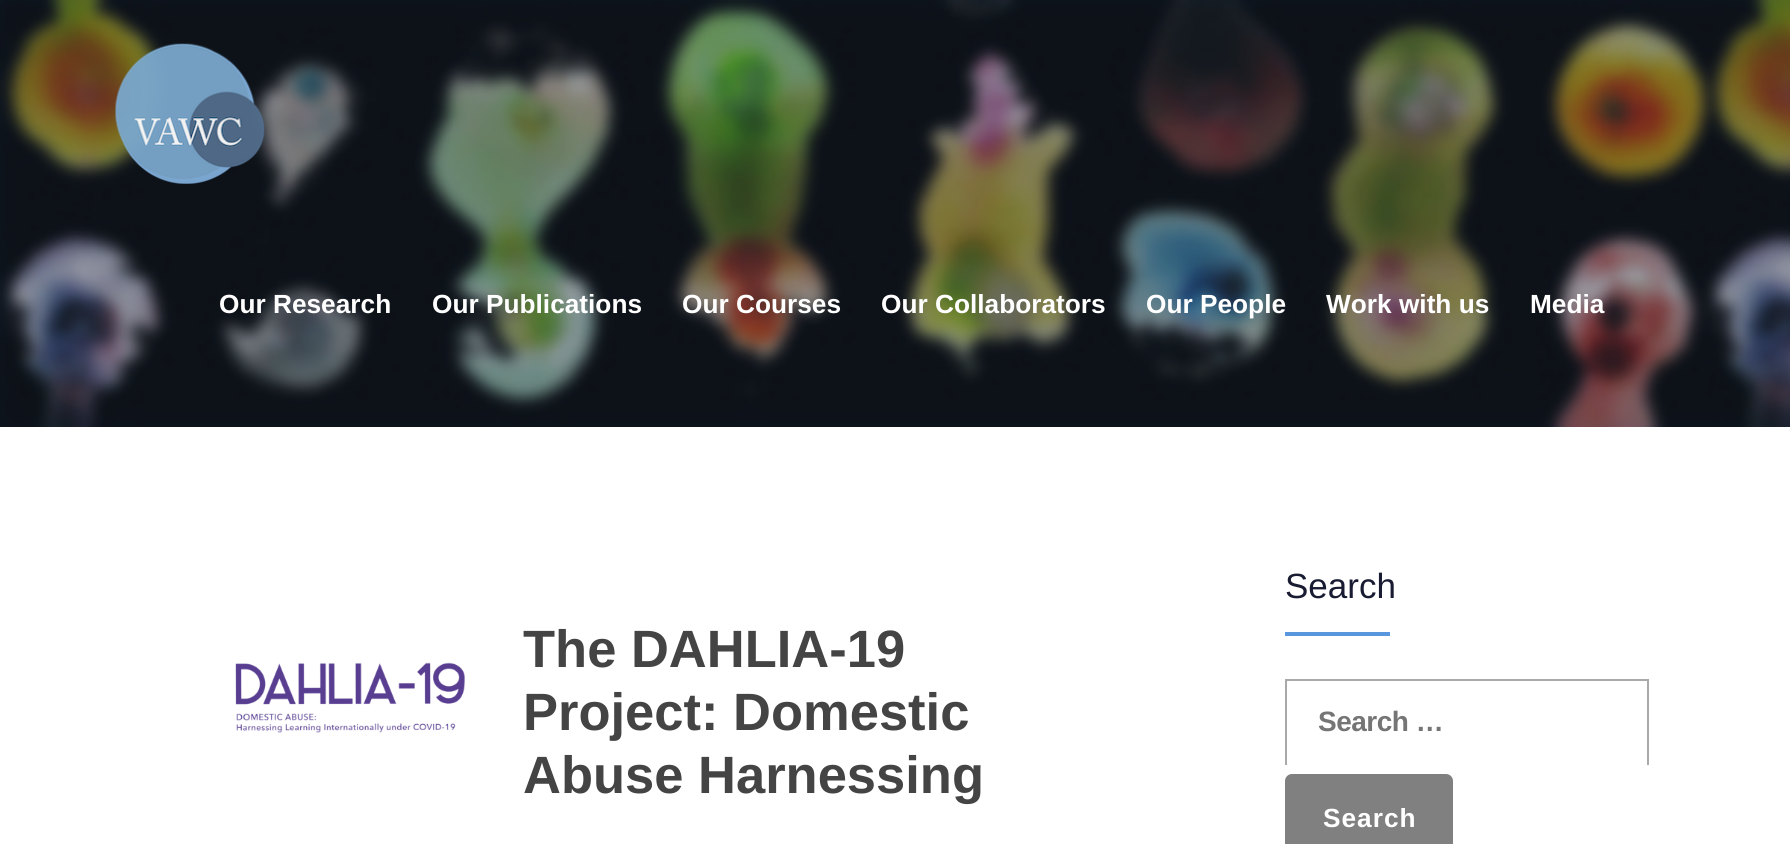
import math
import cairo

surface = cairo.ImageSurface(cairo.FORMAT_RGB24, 1790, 844)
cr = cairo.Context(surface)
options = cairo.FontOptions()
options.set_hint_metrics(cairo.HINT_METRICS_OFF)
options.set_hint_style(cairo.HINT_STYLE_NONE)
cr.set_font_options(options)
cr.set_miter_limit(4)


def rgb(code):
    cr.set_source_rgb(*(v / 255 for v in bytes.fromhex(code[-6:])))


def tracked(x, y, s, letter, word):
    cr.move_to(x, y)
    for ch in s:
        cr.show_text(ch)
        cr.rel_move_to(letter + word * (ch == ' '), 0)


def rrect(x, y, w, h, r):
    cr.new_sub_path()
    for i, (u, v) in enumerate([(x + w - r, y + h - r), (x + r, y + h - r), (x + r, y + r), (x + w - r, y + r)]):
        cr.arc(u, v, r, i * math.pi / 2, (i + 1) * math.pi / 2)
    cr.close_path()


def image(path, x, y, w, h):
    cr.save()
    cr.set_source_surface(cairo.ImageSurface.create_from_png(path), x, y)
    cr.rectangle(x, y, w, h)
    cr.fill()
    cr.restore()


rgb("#ffffff")
cr.paint()
image("img/1.png", 0, 0, 1790, 427)
image("img/2.png", 115, 43, 150, 141)
image("img/3.png", 235, 662, 230, 71)
for x, y, w, h, color in [
    (1285, 632, 105, 4, "#5896de"),
    (1285, 679, 364, 2, "#a9a9a9"),
    (1647, 679, 2, 86, "#a9a9a9"),
    (1285, 679, 2, 86, "#a9a9a9"),
]:
    rgb(color)
    cr.rectangle(x, y, w, h)
    cr.fill()
rgb("#808080")
rrect(1285, 774, 168, 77, 7)
cr.fill()
cr.select_font_face("Liberation Sans", cairo.FONT_SLANT_NORMAL, cairo.FONT_WEIGHT_BOLD)
cr.set_font_size(26.25)
rgb("#ffffff")
for x, y, s in [
    (219, 313, "Our Research"),
    (432, 313, "Our Publications"),
    (682, 313, "Our Courses"),
    (881, 313, "Our Collaborators"),
    (1146, 313, "Our People"),
    (1326, 313, "Work with us"),
    (1530, 313, "Media"),
]:
    cr.move_to(x, y)
    cr.show_text(s)
cr.set_font_size(52.5)
rgb("#444444")
for x, y, s in [
    (523, 667, "The DAHLIA-19"),
    (523, 730, "Project: Domestic"),
    (523, 793, "Abuse Harnessing"),
]:
    cr.move_to(x, y)
    cr.show_text(s)
cr.select_font_face("Liberation Sans")
cr.set_font_size(35)
rgb("#181b31")
cr.move_to(1285, 598)
cr.show_text("Search")
cr.select_font_face("Liberation Sans", cairo.FONT_SLANT_NORMAL, cairo.FONT_WEIGHT_BOLD)
cr.set_font_size(28)
rgb("#757575")
tracked(1318, 731, "Search …", -0.5, 0)
cr.set_font_size(26.25)
rgb("#ffffff")
tracked(1323, 827, "Search", 1, 0)
surface.write_to_png("page.png")
